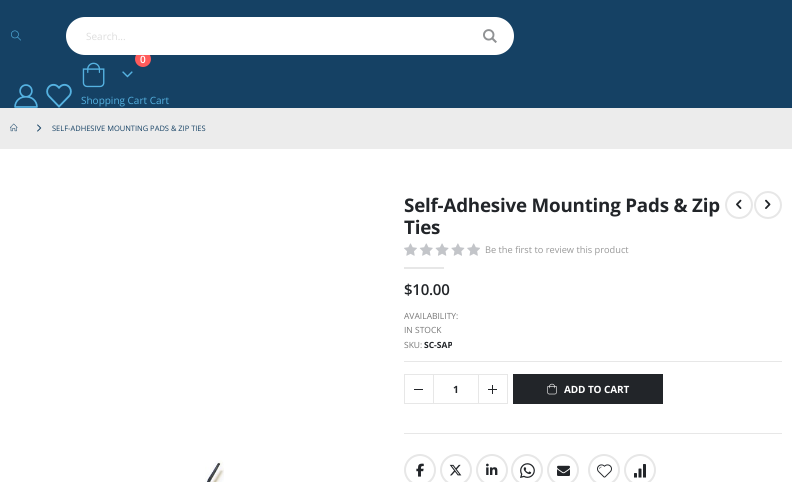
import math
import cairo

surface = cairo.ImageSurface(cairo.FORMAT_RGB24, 792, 482)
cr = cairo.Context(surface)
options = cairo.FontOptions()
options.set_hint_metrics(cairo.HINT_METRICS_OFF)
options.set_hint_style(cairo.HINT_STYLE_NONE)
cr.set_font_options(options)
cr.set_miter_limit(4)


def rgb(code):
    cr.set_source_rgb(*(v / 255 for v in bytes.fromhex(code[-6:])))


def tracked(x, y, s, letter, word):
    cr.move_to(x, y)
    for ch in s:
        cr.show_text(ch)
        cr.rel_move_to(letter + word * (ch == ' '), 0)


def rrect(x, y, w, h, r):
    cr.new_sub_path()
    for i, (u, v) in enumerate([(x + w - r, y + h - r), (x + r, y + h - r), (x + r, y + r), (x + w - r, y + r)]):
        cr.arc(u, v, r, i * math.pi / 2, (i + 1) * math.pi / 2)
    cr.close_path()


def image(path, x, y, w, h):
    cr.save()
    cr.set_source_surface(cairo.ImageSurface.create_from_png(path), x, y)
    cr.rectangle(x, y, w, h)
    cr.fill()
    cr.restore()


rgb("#ffffff")
cr.paint()
rgb("#154164")
cr.rectangle(0, 0, 792, 108)
cr.fill()
image("img/1.png", 11, 30, 10, 11)
rgb("#ff5b5b")
cr.arc(143, 59, 8, 0, 2 * math.pi)
cr.fill()
rgb("#ffffff")
rrect(66, 17, 448, 38, 19)
cr.fill()
image("img/2.png", 483, 29, 14, 14)
image("img/3.png", 14, 84, 24, 24)
image("img/4.png", 46, 83, 26, 25)
image("img/5.png", 82, 62, 23, 26)
image("img/6.png", 122, 71, 11, 7)
rgb("#ececec")
cr.rectangle(0, 108, 792, 41)
cr.fill()
image("img/7.png", 10, 123, 8, 9)
image("img/8.png", 37, 124, 5, 8)
cr.arc(739, 205, 13, 0, 2 * math.pi)
rgb("#e7e7e7")
cr.stroke()
image("img/9.png", 736, 199, 6, 10)
cr.arc(768, 205, 13, 0, 2 * math.pi)
cr.stroke()
image("img/10.png", 765, 199, 6, 10)
image("img/11.png", 404, 243, 76, 13)
for x, y, w, h, color in [
    (404, 267, 40, 2, "#e7e7e7"),
    (404, 361, 378, 1, "#e7e7e7"),
    (404, 433, 378, 1, "#e7e7e7"),
]:
    rgb(color)
    cr.rectangle(x, y, w, h)
    cr.fill()
cr.rectangle(404.5, 374.5, 29, 29)
cr.set_line_width(1)
cr.stroke()
rgb("#222529")
cr.rectangle(414, 389, 9, 1)
cr.fill()
cr.rectangle(478.5, 374.5, 29, 29)
rgb("#e7e7e7")
cr.stroke()
for x, y, w, h, color in [
    (488, 389, 9, 1, "#222529"),
    (492, 385, 1, 9, "#222529"),
    (434, 374, 44, 1, "#e7e7e7"),
    (434, 403, 44, 1, "#e7e7e7"),
    (513, 374, 150, 30, "#222529"),
]:
    rgb(color)
    cr.rectangle(x, y, w, h)
    cr.fill()
image("img/12.png", 547, 383, 10, 12)
cr.arc(420, 470, 15, 0, 2 * math.pi)
rgb("#e7e7e7")
cr.set_line_width(2)
cr.stroke()
image("img/13.png", 416, 463, 8, 14)
cr.arc(456, 470, 15, 0, 2 * math.pi)
cr.stroke()
image("img/14.png", 449, 464, 13, 12)
cr.arc(492, 470, 15, 0, 2 * math.pi)
cr.stroke()
image("img/15.png", 486, 463, 12, 12)
cr.arc(527, 470, 15, 0, 2 * math.pi)
cr.stroke()
image("img/16.png", 520, 463, 15, 15)
cr.arc(563, 470, 15, 0, 2 * math.pi)
cr.stroke()
image("img/17.png", 557, 465, 13, 11)
cr.arc(604, 470, 15, 0, 2 * math.pi)
cr.stroke()
image("img/18.png", 597, 464, 15, 14)
cr.arc(640, 470, 15, 0, 2 * math.pi)
cr.stroke()
image("img/19.png", 634, 464, 12, 14)
image("img/20.png", 205, 460, 19, 22)
cr.select_font_face("Open Sans")
cr.set_font_size(10)
rgb("#dddddd")
cr.move_to(86, 40)
cr.show_text("Search...")
cr.select_font_face("Open Sans SemiBold")
rgb("#ffffff")
cr.move_to(140, 63)
cr.show_text("0")
cr.select_font_face("Open Sans")
rgb("#55b2e1")
cr.move_to(81, 104)
cr.show_text("Shopping Cart Cart")
cr.set_font_size(7.5)
rgb("#154164")
cr.move_to(52, 131)
cr.show_text("SELF-ADHESIVE MOUNTING PADS & ZIP TIES")
cr.select_font_face("Open Sans", cairo.FONT_SLANT_NORMAL, cairo.FONT_WEIGHT_BOLD)
cr.set_font_size(18.75)
rgb("#222529")
tracked(404, 212, "Self-Adhesive Mounting Pads & Zip", -0.2, 0)
tracked(404, 234, "Ties", -0.2, 0)
cr.select_font_face("Open Sans")
cr.set_font_size(9.25)
rgb("#999999")
cr.move_to(485, 253)
cr.show_text("Be the first to review this product")
cr.select_font_face("Open Sans SemiBold")
cr.set_font_size(15)
rgb("#222529")
tracked(404, 295, "$10.00", -0.25, 0)
cr.select_font_face("Open Sans")
cr.set_font_size(8.5)
rgb("#777777")
for x, y, s in [
    (404, 319, "AVAILABILITY:"),
    (404, 333, "IN STOCK"),
    (404, 348, "SKU:"),
]:
    cr.move_to(x, y)
    cr.show_text(s)
cr.select_font_face("Open Sans", cairo.FONT_SLANT_NORMAL, cairo.FONT_WEIGHT_BOLD)
rgb("#222529")
cr.move_to(424, 348)
cr.show_text("SC-SAP")
cr.set_font_size(10)
cr.move_to(453, 393)
cr.show_text("1")
rgb("#ffffff")
tracked(564, 393, "ADD TO CART", -0.1, 0)
surface.write_to_png("page.png")
